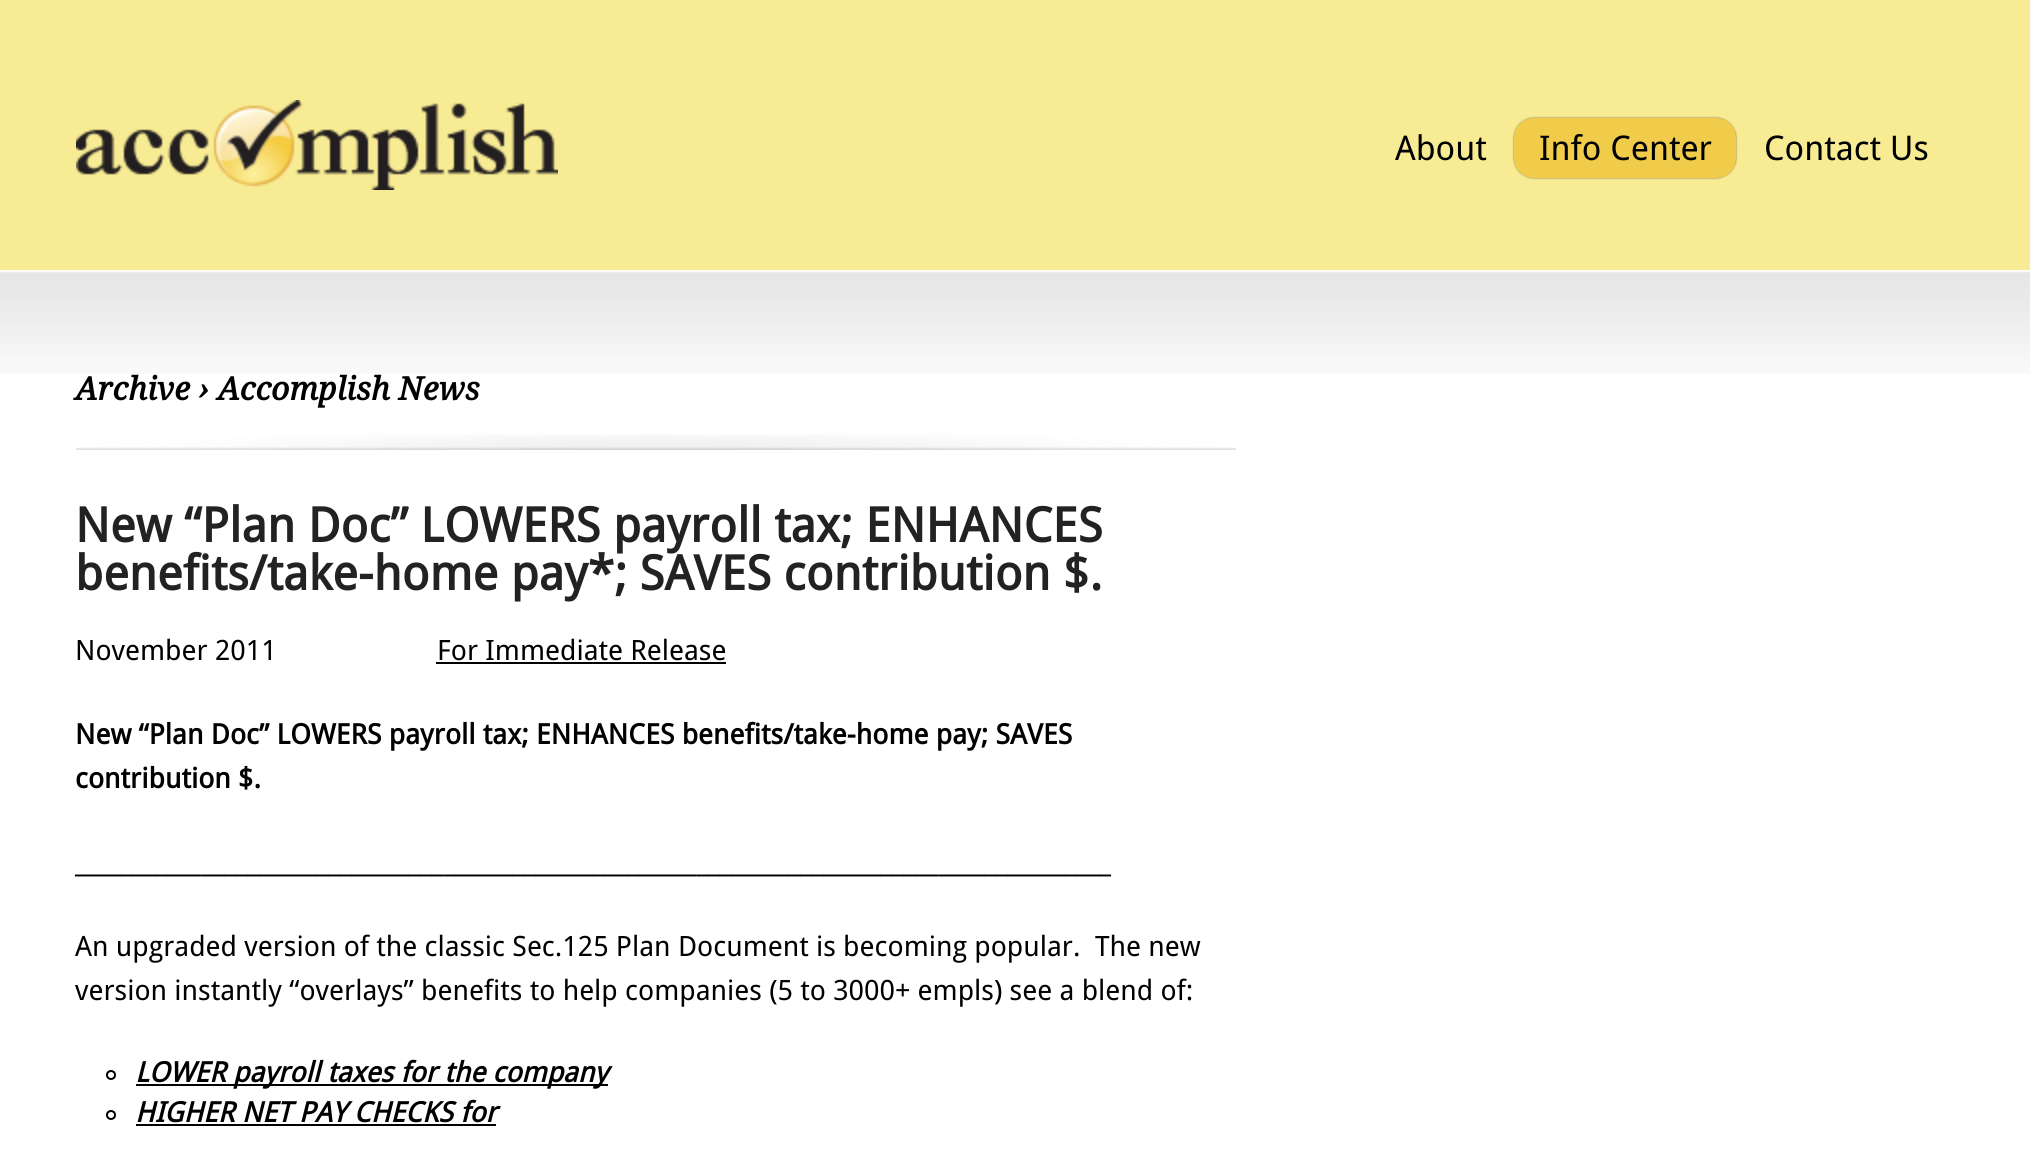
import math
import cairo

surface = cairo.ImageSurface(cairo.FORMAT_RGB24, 2030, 1155)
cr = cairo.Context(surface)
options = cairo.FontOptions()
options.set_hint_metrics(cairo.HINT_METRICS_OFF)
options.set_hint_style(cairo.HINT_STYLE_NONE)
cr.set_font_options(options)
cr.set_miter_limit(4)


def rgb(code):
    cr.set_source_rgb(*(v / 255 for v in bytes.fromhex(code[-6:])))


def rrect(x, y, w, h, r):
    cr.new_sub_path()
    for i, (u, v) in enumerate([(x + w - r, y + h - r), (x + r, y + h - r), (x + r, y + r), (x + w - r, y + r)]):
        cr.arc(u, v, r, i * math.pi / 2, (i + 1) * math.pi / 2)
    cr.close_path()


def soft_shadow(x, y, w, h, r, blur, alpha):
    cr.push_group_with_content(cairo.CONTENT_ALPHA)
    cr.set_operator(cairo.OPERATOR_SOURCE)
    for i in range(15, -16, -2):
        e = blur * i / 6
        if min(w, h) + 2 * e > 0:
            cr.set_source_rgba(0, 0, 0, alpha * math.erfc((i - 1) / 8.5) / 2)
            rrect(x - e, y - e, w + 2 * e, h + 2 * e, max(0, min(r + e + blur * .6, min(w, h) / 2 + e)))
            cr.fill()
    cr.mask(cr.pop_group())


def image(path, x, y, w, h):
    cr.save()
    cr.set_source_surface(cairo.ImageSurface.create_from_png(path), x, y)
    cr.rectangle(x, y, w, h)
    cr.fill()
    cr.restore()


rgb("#ffffff")
cr.paint()
rgb("#f7eb94")
cr.rectangle(0, 0, 2030, 270)
cr.fill()
image("img/1.png", 76, 100, 482, 90)
rgb("#000000")
soft_shadow(1514, 118, 222, 60, 20, 1, 0.5)
rgb("#f1cc4a")
rrect(1514, 118, 222, 60, 20)
cr.fill()
image("img/2.png", 0, 271, 2030, 103)
image("img/3.png", 76, 434, 1160, 16)
rgb("#000000")
cr.rectangle(436, 662, 290, 2)
cr.fill()
cr.arc(111, 1075, 4, 0, 2 * math.pi)
cr.stroke()
cr.rectangle(136, 1084, 472, 2)
cr.fill()
cr.arc(111, 1115, 4, 0, 2 * math.pi)
cr.stroke()
cr.rectangle(136, 1124, 360, 2)
cr.fill()
cr.select_font_face("Droid Sans")
cr.set_font_size(34)
for x, y, s in [
    (1395, 160, "About"),
    (1539, 160, "Info Center"),
    (1764, 160, "Contact Us"),
]:
    cr.move_to(x, y)
    cr.show_text(s)
cr.select_font_face("Droid Serif", cairo.FONT_SLANT_ITALIC, cairo.FONT_WEIGHT_BOLD)
cr.set_font_size(32)
cr.move_to(75, 400)
cr.show_text("Archive › Accomplish News")
cr.select_font_face("Droid Sans", cairo.FONT_SLANT_NORMAL, cairo.FONT_WEIGHT_BOLD)
cr.set_font_size(48)
rgb("#222222")
cr.move_to(75, 542)
cr.show_text("New “Plan Doc” LOWERS payroll tax; ENHANCES")
cr.move_to(75, 590)
cr.show_text("benefits/take-home pay*; SAVES contribution $.")
cr.select_font_face("Droid Sans")
cr.set_font_size(28)
rgb("#000000")
cr.move_to(75, 660)
cr.show_text("November 2011")
cr.move_to(437, 660)
cr.show_text("For Immediate Release")
cr.select_font_face("Droid Sans", cairo.FONT_SLANT_NORMAL, cairo.FONT_WEIGHT_BOLD)
cr.move_to(75, 744)
cr.show_text("New “Plan Doc” LOWERS payroll tax; ENHANCES benefits/take-home pay; SAVES")
cr.move_to(75, 788)
cr.show_text("contribution $.")
cr.select_font_face("Droid Sans")
for x, y, s in [
    (75, 872, "__________________________________________________________________________________________"),
    (75, 956, "An upgraded version of the classic Sec.125 Plan Document is becoming popular.  The new"),
    (75, 1000, "version instantly “overlays” benefits to help companies (5 to 3000+ empls) see a blend of:"),
]:
    cr.move_to(x, y)
    cr.show_text(s)
cr.select_font_face("Droid Sans", cairo.FONT_SLANT_ITALIC, cairo.FONT_WEIGHT_BOLD)
cr.move_to(135, 1082)
cr.show_text("LOWER payroll taxes for the company")
cr.move_to(135, 1122)
cr.show_text("HIGHER NET PAY CHECKS for")
surface.write_to_png("page.png")
